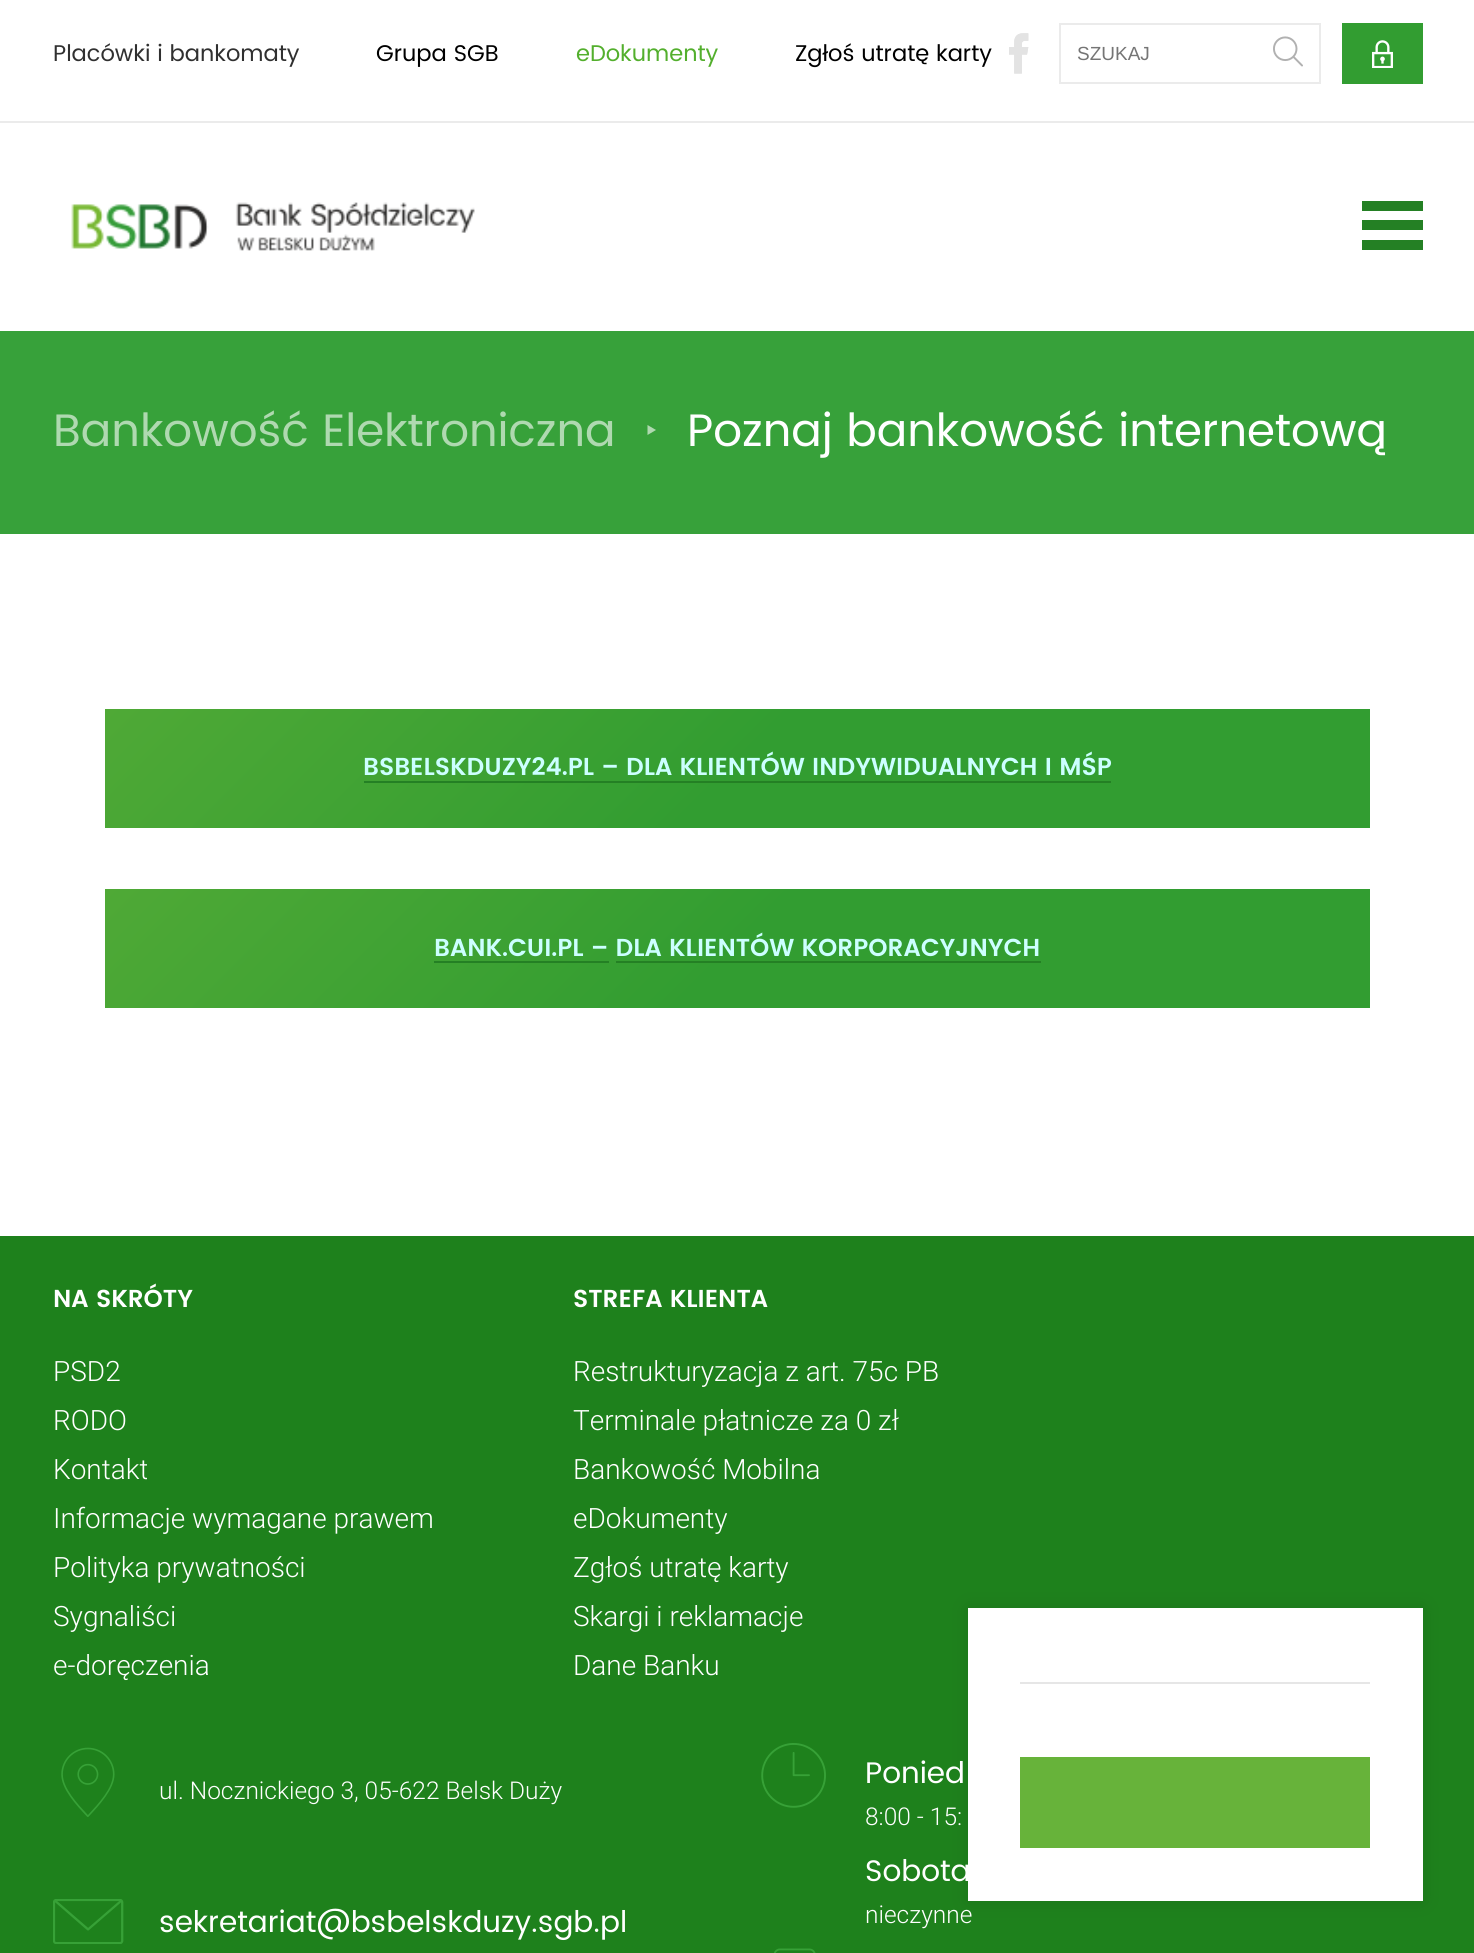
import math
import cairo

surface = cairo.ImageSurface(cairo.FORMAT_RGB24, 1474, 1953)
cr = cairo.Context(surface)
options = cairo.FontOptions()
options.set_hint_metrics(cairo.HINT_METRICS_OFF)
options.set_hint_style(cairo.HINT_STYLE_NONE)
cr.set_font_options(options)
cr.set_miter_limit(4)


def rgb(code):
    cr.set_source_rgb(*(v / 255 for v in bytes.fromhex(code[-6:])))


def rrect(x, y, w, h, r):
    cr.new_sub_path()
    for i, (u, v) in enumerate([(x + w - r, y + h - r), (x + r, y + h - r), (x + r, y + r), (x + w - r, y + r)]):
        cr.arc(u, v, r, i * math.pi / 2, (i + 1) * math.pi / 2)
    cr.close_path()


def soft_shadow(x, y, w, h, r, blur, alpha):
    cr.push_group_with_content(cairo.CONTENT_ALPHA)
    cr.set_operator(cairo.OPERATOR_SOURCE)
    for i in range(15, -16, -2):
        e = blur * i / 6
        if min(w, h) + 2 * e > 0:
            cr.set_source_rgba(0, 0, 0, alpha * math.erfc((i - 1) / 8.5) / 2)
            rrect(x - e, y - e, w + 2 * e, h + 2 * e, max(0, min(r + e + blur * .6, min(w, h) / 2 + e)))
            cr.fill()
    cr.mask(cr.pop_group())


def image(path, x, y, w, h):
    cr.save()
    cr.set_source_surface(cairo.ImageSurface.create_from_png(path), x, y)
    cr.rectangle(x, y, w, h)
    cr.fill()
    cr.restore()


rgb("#ffffff")
cr.paint()
rgb("#ebebeb")
cr.rectangle(0, 121, 1474, 2)
cr.fill()
image("img/1.png", 1009, 33, 20, 41)
cr.rectangle(1060, 24, 260, 59)
cr.stroke()
image("img/2.png", 1273, 36, 30, 31)
rgb("#329d31")
cr.rectangle(1342, 23, 81, 61)
cr.fill()
image("img/3.png", 1372, 40, 21, 28)
image("img/4.png", 71, 202, 404, 49)
rgb("#248024")
cr.new_path()
cr.move_to(1362, 201)
cr.line_to(1423, 201)
cr.line_to(1423, 211)
cr.line_to(1362, 211)
cr.close_path()
cr.move_to(1362, 220)
cr.line_to(1423, 220)
cr.line_to(1423, 230)
cr.line_to(1362, 230)
cr.close_path()
cr.move_to(1362, 240)
cr.line_to(1423, 240)
cr.line_to(1423, 250)
cr.line_to(1362, 250)
cr.close_path()
cr.fill()
rgb("#37a13a")
cr.rectangle(0, 331, 1474, 203)
cr.fill()
rgb("#afd9b0")
cr.new_path()
cr.move_to(647.5, 425)
cr.line_to(656, 430)
cr.line_to(647.5, 435)
cr.close_path()
cr.fill()
gradient = cairo.LinearGradient(392, 422, 1084, 1114)
gradient.add_color_stop_rgba(0, 0.31, 0.663, 0.212, 1)
gradient.add_color_stop_rgba(0.5, 0.196, 0.616, 0.192, 1)
gradient.add_color_stop_rgba(1, 0.196, 0.616, 0.192, 1)
cr.set_source(gradient)
cr.rectangle(105, 709, 1265, 119)
cr.fill()
rgb("#248024")
cr.rectangle(364, 781, 747, 2)
cr.fill()
gradient = cairo.LinearGradient(392, 602, 1084, 1295)
gradient.add_color_stop_rgba(0, 0.31, 0.663, 0.212, 1)
gradient.add_color_stop_rgba(0.5, 0.196, 0.616, 0.192, 1)
gradient.add_color_stop_rgba(1, 0.196, 0.616, 0.192, 1)
cr.set_source(gradient)
cr.rectangle(105, 889, 1265, 119)
cr.fill()
for x, y, w, h, color in [
    (434, 961, 175, 2, "#248024"),
    (616, 961, 425, 2, "#248024"),
    (0, 1236, 1474, 717, "#1e811c"),
]:
    rgb(color)
    cr.rectangle(x, y, w, h)
    cr.fill()
image("img/5.png", 61, 1747, 54, 70)
image("img/6.png", 53, 1899, 71, 45)
image("img/7.png", 761, 1743, 65, 65)
image("img/8.png", 774, 1948, 42, 5)
rgb("#000000")
soft_shadow(968, 1608, 455, 293, 0, 9, 0.1)
for x, y, w, h, color in [
    (968, 1608, 455, 293, "#ffffff"),
    (1020, 1682, 350, 2, "#e6e6e6"),
    (1020, 1757, 350, 91, "#67b33a"),
]:
    rgb(color)
    cr.rectangle(x, y, w, h)
    cr.fill()
cr.select_font_face("Poppins")
cr.set_font_size(22.75)
rgb("#303030")
cr.move_to(53, 61)
cr.show_text("Placówki i bankomaty")
rgb("#000000")
cr.move_to(376, 61)
cr.show_text("Grupa SGB")
rgb("#53af2d")
cr.move_to(576, 61)
cr.show_text("eDokumenty")
rgb("#000000")
cr.move_to(795, 61)
cr.show_text("Zgłoś utratę karty")
cr.select_font_face("Liberation Sans")
cr.set_font_size(19)
rgb("#757575")
cr.move_to(1077, 60)
cr.show_text("SZUKAJ")
cr.select_font_face("Poppins")
cr.set_font_size(45.5)
rgb("#afd9b0")
cr.move_to(53, 446)
cr.show_text("Bankowość Elektroniczna")
rgb("#ffffff")
cr.move_to(687, 446)
cr.show_text("Poznaj bankowość internetową")
cr.select_font_face("Poppins SemiBold")
cr.set_font_size(24.5)
rgb("#ccffff")
cr.move_to(363, 775)
cr.show_text("BSBELSKDUZY24.PL – DLA KLIENTÓW INDYWIDUALNYCH I MŚP")
cr.move_to(434, 956)
cr.show_text("BANK.CUI.PL – DLA KLIENTÓW KORPORACYJNYCH")
rgb("#ffffff")
cr.move_to(53, 1307)
cr.show_text("NA SKRÓTY")
cr.select_font_face("Roboto Light")
cr.set_font_size(28)
for x, y, s in [
    (53, 1381, "PSD2"),
    (53, 1430, "RODO"),
    (53, 1479, "Kontakt"),
    (53, 1528, "Informacje wymagane prawem"),
    (53, 1577, "Polityka prywatności"),
    (53, 1626, "Sygnaliści"),
    (53, 1675, "e-doręczenia"),
]:
    cr.move_to(x, y)
    cr.show_text(s)
cr.select_font_face("Poppins SemiBold")
cr.set_font_size(24.5)
cr.move_to(573, 1307)
cr.show_text("STREFA KLIENTA")
cr.select_font_face("Roboto Light")
cr.set_font_size(28)
for x, y, s in [
    (573, 1381, "Restrukturyzacja z art. 75c PB"),
    (573, 1430, "Terminale płatnicze za 0 zł"),
    (573, 1479, "Bankowość Mobilna"),
    (573, 1528, "eDokumenty"),
    (573, 1577, "Zgłoś utratę karty"),
    (573, 1626, "Skargi i reklamacje"),
    (573, 1675, "Dane Banku"),
]:
    cr.move_to(x, y)
    cr.show_text(s)
cr.set_font_size(24.5)
cr.move_to(159, 1799)
cr.show_text("ul. Nocznickiego 3, 05-622 Belsk Duży")
cr.select_font_face("Poppins")
cr.set_font_size(29.75)
cr.move_to(159, 1932)
cr.show_text("sekretariat@bsbelskduzy.sgb.pl")
cr.move_to(865, 1783)
cr.show_text("Ponied")
cr.select_font_face("Roboto Light")
cr.set_font_size(24.5)
cr.move_to(865, 1825)
cr.show_text("8:00 - 15:")
cr.select_font_face("Poppins")
cr.set_font_size(29.75)
cr.move_to(865, 1881)
cr.show_text("Sobota")
cr.select_font_face("Roboto Light")
cr.set_font_size(24.5)
cr.move_to(865, 1923)
cr.show_text("nieczynne")
surface.write_to_png("page.png")
